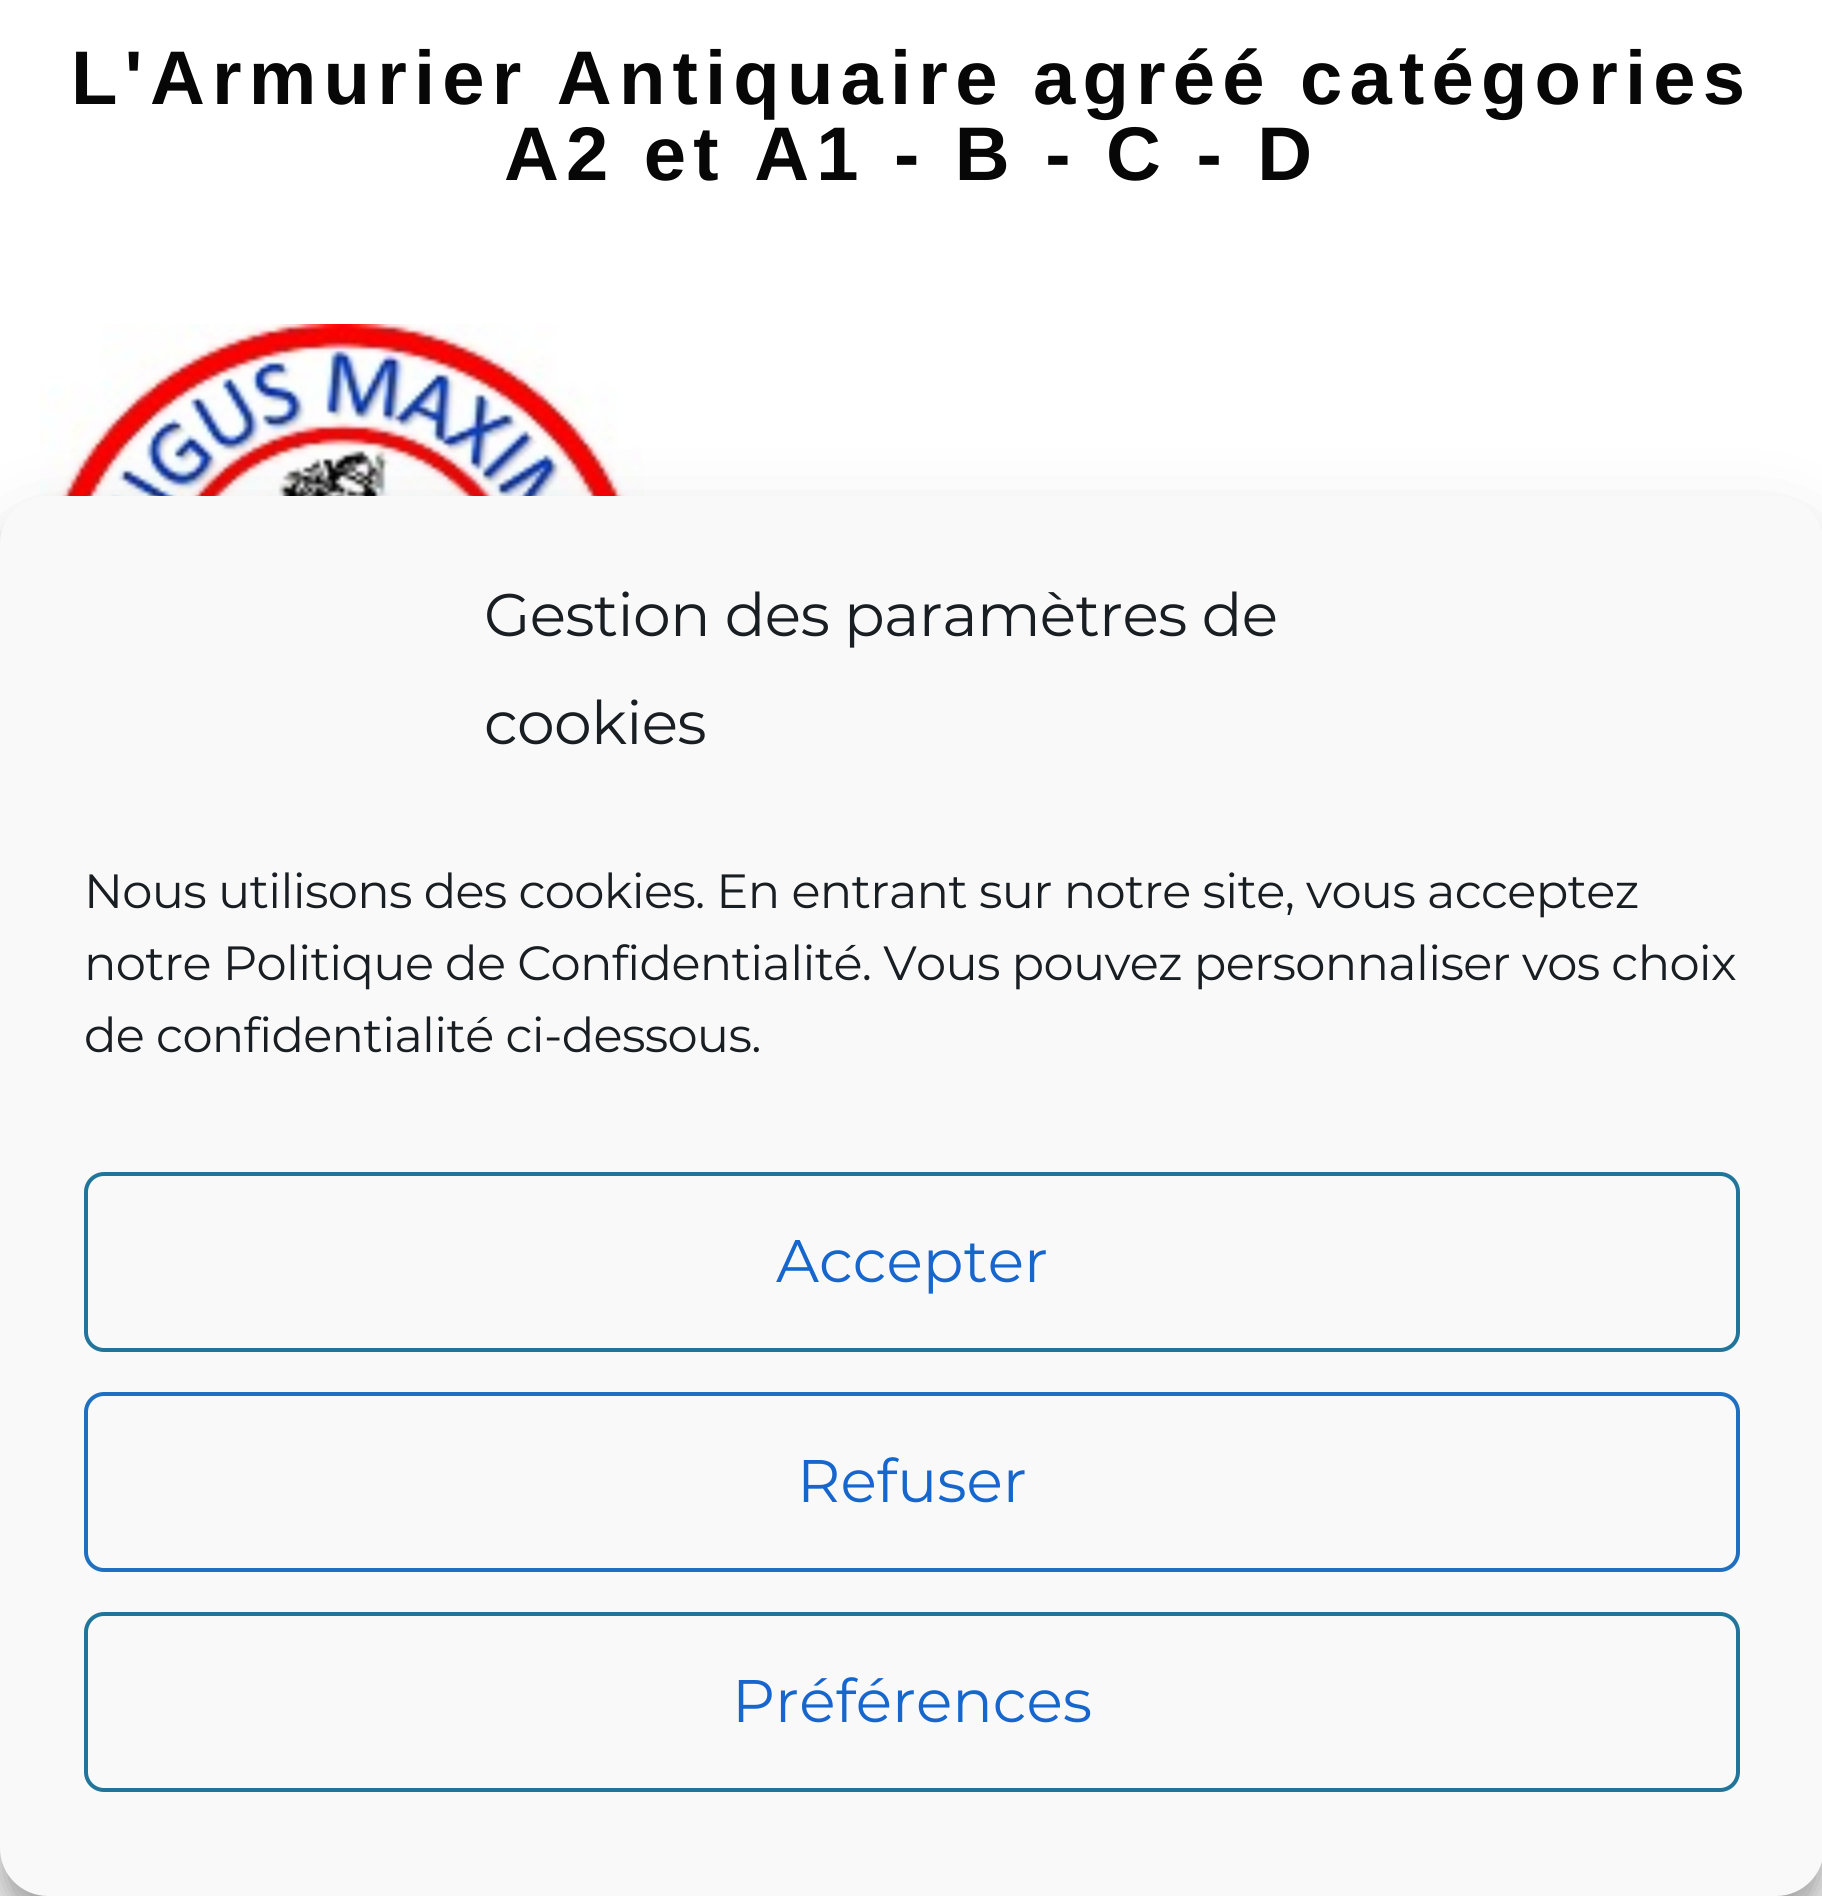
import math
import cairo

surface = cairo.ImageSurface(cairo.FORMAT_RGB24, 1822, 1896)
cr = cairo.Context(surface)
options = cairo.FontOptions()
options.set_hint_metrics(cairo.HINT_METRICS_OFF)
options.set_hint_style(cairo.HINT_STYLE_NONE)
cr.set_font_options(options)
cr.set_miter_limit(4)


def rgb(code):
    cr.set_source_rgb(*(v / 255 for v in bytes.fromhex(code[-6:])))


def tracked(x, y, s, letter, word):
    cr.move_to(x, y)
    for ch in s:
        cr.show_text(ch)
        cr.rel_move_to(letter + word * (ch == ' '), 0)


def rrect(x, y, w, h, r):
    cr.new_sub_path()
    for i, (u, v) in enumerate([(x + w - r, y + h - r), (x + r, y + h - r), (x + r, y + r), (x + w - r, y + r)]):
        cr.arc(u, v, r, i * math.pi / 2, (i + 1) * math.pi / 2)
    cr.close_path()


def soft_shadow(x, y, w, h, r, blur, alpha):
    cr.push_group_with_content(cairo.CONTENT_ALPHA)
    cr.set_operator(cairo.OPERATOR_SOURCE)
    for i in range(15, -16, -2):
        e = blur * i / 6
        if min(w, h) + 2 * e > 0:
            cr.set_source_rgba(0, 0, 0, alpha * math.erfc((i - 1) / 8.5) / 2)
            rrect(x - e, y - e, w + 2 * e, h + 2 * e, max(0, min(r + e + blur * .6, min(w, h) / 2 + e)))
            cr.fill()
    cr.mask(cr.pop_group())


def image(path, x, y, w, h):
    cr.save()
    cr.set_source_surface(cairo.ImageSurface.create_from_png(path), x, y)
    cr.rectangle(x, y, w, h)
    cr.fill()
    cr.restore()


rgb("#ffffff")
cr.paint()
image("img/1.png", 40, 324, 604, 173)
rgb("#000000")
soft_shadow(0, 520, 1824, 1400, 48, 12, 0.23)
soft_shadow(0, 536, 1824, 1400, 48, 40, 0.19)
rgb("#f9f9f9")
rrect(2, 498, 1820, 1396, 46)
cr.fill_preserve()
cr.set_line_width(4)
cr.stroke()
rrect(86, 1174, 1652, 176, 18)
rgb("#21759b")
cr.stroke()
rrect(86, 1394, 1652, 176, 18)
rgb("#1f70c1")
cr.stroke()
rrect(86, 1614, 1652, 176, 18)
rgb("#21759b")
cr.stroke()
cr.select_font_face("Liberation Sans", cairo.FONT_SLANT_NORMAL, cairo.FONT_WEIGHT_BOLD)
cr.set_font_size(76)
rgb("#070707")
tracked(71, 104, "L'Armurier Antiquaire agréé catégories", 7.2, 0)
tracked(504, 180, "A2 et A1 - B - C - D", 7.2, 0)
cr.select_font_face("Montserrat")
cr.set_font_size(60)
rgb("#191e23")
tracked(484, 636, "Gestion des paramètres de", -0.68, 0)
tracked(484, 744, "cookies", -0.68, 0)
cr.set_font_size(48)
for x, y, s in [
    (84, 908, "Nous utilisons des cookies. En entrant sur notre site, vous acceptez"),
    (84, 980, "notre Politique de Confidentialité. Vous pouvez personnaliser vos choix"),
    (84, 1052, "de confidentialité ci-dessous."),
]:
    tracked(x, y, s, -0.68, 0)
cr.set_font_size(60)
rgb("#1666ce")
for x, y, s in [
    (776, 1282, "Accepter"),
    (797, 1502, "Refuser"),
    (732, 1722, "Préférences"),
]:
    cr.move_to(x, y)
    cr.show_text(s)
surface.write_to_png("page.png")
